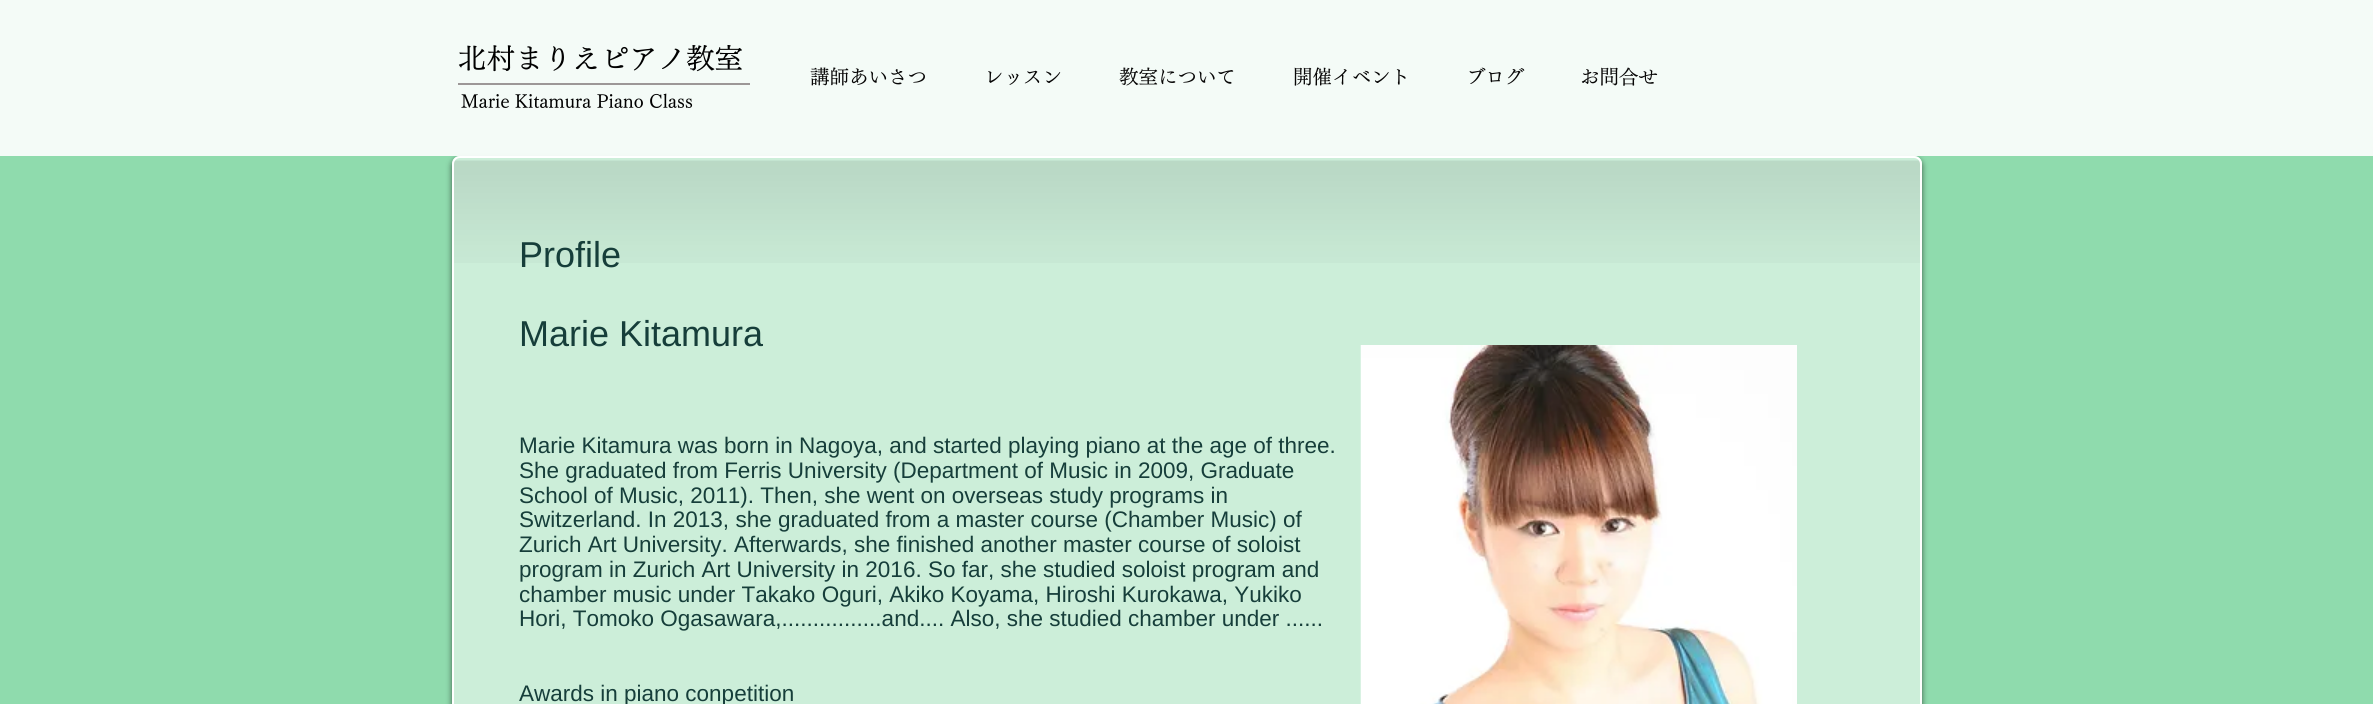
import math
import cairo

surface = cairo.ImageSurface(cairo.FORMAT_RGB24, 2373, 704)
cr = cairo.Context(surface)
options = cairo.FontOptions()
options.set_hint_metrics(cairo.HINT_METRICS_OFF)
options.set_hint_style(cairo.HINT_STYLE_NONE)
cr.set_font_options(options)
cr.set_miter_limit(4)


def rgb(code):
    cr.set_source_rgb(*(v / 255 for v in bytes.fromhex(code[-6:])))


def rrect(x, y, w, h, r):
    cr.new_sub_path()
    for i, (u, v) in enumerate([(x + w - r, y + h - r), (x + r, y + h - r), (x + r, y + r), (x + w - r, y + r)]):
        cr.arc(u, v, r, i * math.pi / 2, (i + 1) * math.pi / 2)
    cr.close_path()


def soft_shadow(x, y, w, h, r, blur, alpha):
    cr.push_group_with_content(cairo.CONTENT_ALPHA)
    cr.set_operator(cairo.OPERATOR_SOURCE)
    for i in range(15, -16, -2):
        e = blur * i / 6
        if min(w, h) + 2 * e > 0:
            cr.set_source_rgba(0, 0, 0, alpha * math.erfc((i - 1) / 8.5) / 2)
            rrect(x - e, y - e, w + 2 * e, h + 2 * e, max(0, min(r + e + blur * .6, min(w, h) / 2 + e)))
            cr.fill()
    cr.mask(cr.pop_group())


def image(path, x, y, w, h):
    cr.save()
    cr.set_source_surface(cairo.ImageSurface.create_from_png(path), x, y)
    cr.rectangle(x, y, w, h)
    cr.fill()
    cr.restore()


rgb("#8fdbad")
cr.paint()
cr.save()
cr.set_fill_rule(cairo.FILL_RULE_EVEN_ODD)
cr.new_path()
cr.move_to(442, 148)
cr.line_to(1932, 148)
cr.line_to(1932, 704)
cr.line_to(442, 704)
cr.close_path()
cr.move_to(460, 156)
cr.line_to(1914, 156)
cr.curve_to(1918.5, 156, 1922, 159.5, 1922, 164)
cr.line_to(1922, 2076)
cr.curve_to(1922, 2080.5, 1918.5, 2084, 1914, 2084)
cr.line_to(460, 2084)
cr.curve_to(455.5, 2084, 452, 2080.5, 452, 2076)
cr.line_to(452, 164)
cr.curve_to(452, 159.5, 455.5, 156, 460, 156)
cr.close_path()
cr.clip()
rgb("#000000")
soft_shadow(452, 158, 1470, 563, 8, 3, 0.6)
cr.restore()
cr.set_source_rgba(1, 1, 1, 0.9)
cr.rectangle(0, 0, 2373, 156)
cr.fill()
rgb("#9c9797")
cr.rectangle(458, 83, 292, 2)
cr.fill()
cr.set_source_rgba(1, 1, 1, 0.54)
rrect(452, 156, 1470, 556, 8)
cr.fill()
image("img/1.png", 452, 160, 1469, 103)
rrect(453, 157, 1468, 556, 7)
rgb("#ffffff")
cr.stroke()
image("img/2.png", 1360, 345, 437, 359)
cr.select_font_face("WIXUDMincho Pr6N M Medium")
cr.set_font_size(28.5)
rgb("#000000")
cr.move_to(458, 69)
cr.show_text("北村まりえピアノ教室")
cr.set_font_size(18)
cr.move_to(461, 108)
cr.show_text("Marie Kitamura Piano Class")
cr.set_font_size(19.5)
rgb("#070606")
for x, y, s in [
    (810, 84, "講師あいさつ"),
    (984, 84, "レッスン"),
    (1119, 84, "教室について"),
    (1293, 84, "開催イベント"),
    (1466, 84, "ブログ"),
    (1580, 84, "お問合せ"),
]:
    cr.move_to(x, y)
    cr.show_text(s)
cr.select_font_face("Liberation Sans")
cr.set_font_size(36)
rgb("#163e3a")
cr.move_to(519, 267)
cr.show_text("Profile")
cr.move_to(519, 346)
cr.show_text("Marie Kitamura")
cr.set_font_size(22.5)
for x, y, s in [
    (519, 453, "Marie Kitamura was born in Nagoya, and started playing piano at the age of three."),
    (519, 478, "She graduated from Ferris University (Department of Music in 2009, Graduate"),
    (519, 503, "School of Music, 2011). Then, she went on overseas study programs in"),
    (519, 527, "Switzerland. In 2013, she graduated from a master course (Chamber Music) of"),
    (519, 552, "Zurich Art University. Afterwards, she finished another master course of soloist"),
    (519, 577, "program in Zurich Art University in 2016. So far, she studied soloist program and"),
    (519, 602, "chamber music under Takako Oguri, Akiko Koyama, Hiroshi Kurokawa, Yukiko"),
    (519, 626, "Hori, Tomoko Ogasawara,................and.... Also, she studied chamber under ......"),
    (519, 701, "Awards in piano conpetition"),
]:
    cr.move_to(x, y)
    cr.show_text(s)
surface.write_to_png("page.png")
